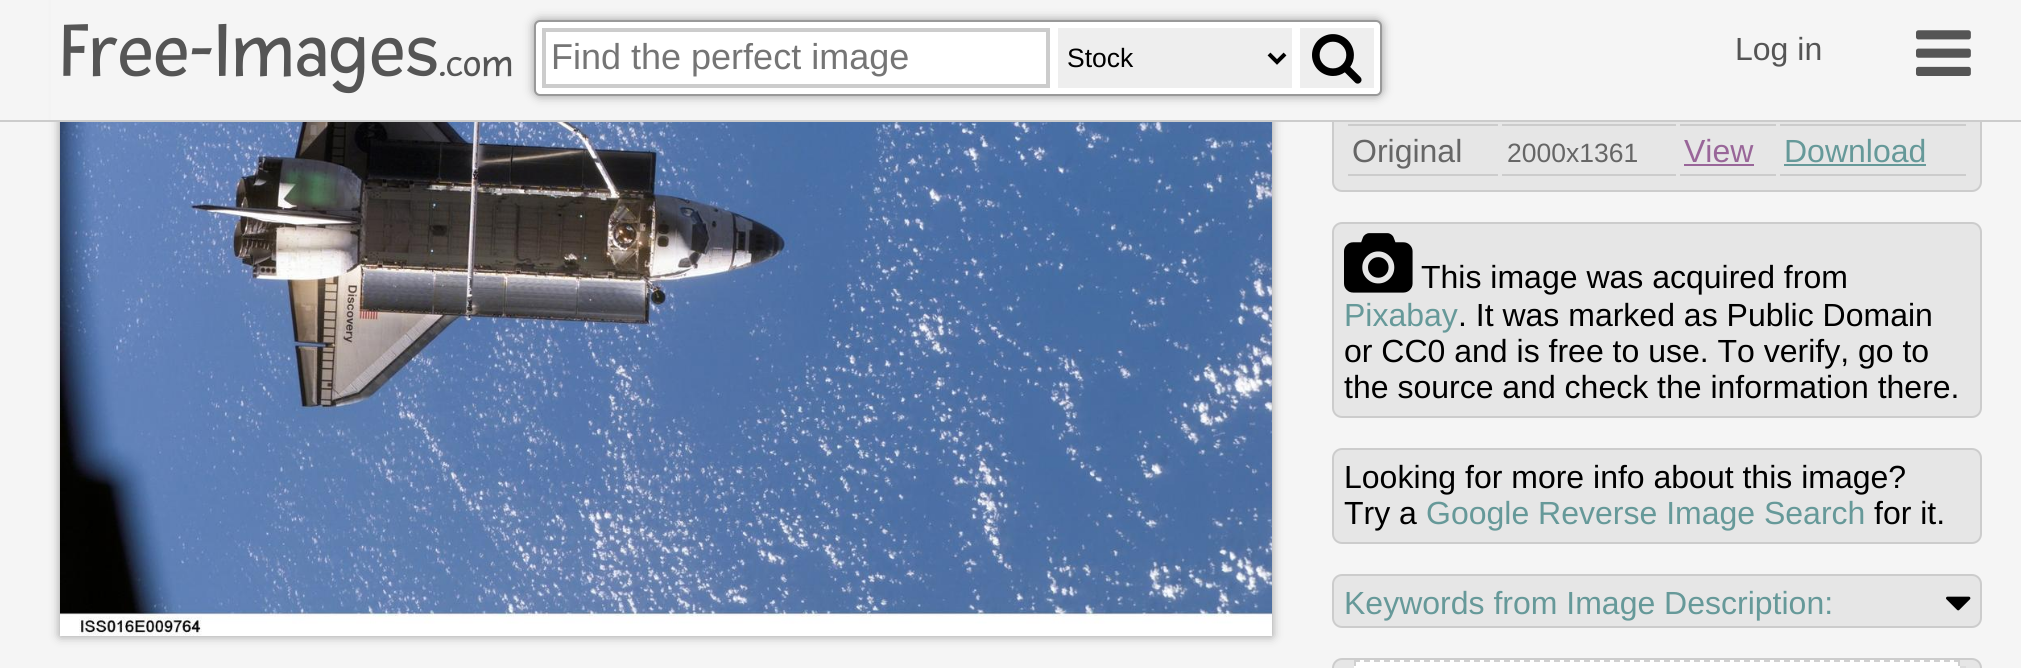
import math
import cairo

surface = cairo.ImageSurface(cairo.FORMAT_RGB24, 2021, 668)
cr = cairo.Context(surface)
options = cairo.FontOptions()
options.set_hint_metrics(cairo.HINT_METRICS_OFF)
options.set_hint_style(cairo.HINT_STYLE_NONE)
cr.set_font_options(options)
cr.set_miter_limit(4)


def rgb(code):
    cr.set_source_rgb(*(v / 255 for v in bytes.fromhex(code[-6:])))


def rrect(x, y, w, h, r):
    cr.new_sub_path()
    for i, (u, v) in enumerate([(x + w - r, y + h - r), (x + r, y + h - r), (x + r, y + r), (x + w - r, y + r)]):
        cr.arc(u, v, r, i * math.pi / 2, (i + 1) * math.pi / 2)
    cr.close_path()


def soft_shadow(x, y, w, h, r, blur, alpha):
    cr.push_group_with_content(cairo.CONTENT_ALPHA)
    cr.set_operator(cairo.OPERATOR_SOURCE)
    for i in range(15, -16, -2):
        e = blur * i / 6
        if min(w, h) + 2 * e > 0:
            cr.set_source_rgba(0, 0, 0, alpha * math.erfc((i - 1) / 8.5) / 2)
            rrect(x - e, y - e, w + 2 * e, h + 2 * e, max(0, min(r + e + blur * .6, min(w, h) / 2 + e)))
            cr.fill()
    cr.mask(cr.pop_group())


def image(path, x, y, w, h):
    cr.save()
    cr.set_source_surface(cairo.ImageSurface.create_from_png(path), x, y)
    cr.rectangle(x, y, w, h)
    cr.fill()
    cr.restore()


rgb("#f5f5f5")
cr.paint()
rgb("#999999")
soft_shadow(60, -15, 1212, 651, 0, 5, 1)
rgb("#e6e6e6")
rrect(1333, -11, 648, 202, 9)
cr.fill_preserve()
rgb("#cccccc")
cr.stroke()
rgb("#f5f5f5")
cr.rectangle(51, 0, 1931, 120)
cr.fill()
rgb("#cccccc")
cr.rectangle(0, 120, 2021, 2)
cr.fill()
rgb("#999999")
soft_shadow(534, 20, 848, 76, 6, 5, 1)
rgb("#ffffff")
rrect(535, 21, 846, 74, 5)
cr.fill_preserve()
rgb("#999999")
cr.stroke()
cr.rectangle(544, 30, 504, 56)
rgb("#cccccc")
cr.set_line_width(4)
cr.stroke()
rgb("#eeeeee")
cr.rectangle(1058, 28, 234, 60)
cr.fill()
cr.new_path()
cr.move_to(1269, 54)
cr.line_to(1277, 62)
cr.line_to(1285, 54)
rgb("#000000")
cr.stroke()
rgb("#eeeeee")
cr.rectangle(1300, 28, 74, 60)
cr.fill()
image("img/1.png", 1312, 34, 50, 50)
image("img/2.png", 1916, 30, 55, 46)
image("img/3.png", 60, 122, 1212, 514)
for x, y, w, h, color in [
    (1348, 124, 150, 2, "#cccccc"),
    (1502, 124, 174, 2, "#cccccc"),
    (1680, 124, 96, 2, "#cccccc"),
    (1780, 124, 186, 2, "#cccccc"),
    (1348, 174, 150, 2, "#cccccc"),
    (1502, 174, 174, 2, "#cccccc"),
    (1680, 174, 96, 2, "#cccccc"),
    (1684, 164, 70, 2, "#996699"),
    (1780, 174, 186, 2, "#cccccc"),
    (1784, 164, 142, 2, "#669999"),
]:
    rgb(color)
    cr.rectangle(x, y, w, h)
    cr.fill()
rgb("#e6e6e6")
rrect(1333, 223, 648, 194, 9)
cr.fill_preserve()
rgb("#cccccc")
cr.set_line_width(2)
cr.stroke()
image("img/4.png", 1344, 233, 69, 60)
rgb("#e6e6e6")
rrect(1333, 449, 648, 94, 9)
cr.fill_preserve()
rgb("#cccccc")
cr.stroke()
rgb("#e6e6e6")
rrect(1333, 575, 648, 52, 9)
cr.fill_preserve()
rgb("#cccccc")
cr.stroke()
image("img/5.png", 1946, 596, 25, 15)
rgb("#e6e6e6")
rrect(1333, 659, 648, 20, 9)
cr.fill_preserve()
rgb("#cccccc")
cr.stroke()
rgb("#dcdcdc")
cr.new_path()
cr.move_to(1360, 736)
cr.line_to(1360, 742)
cr.line_to(1966, 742)
cr.line_to(1966, 666)
cr.line_to(1960, 666)
cr.line_to(1960, 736)
cr.close_path()
cr.fill()
rgb("#ffffff")
cr.rectangle(1354, 660, 606, 8)
cr.fill()
cr.new_path()
cr.move_to(1354, 661)
cr.line_to(1960, 661)
rgb("#d0d0d0")
cr.set_dash([6, 4])
cr.stroke()
cr.new_path()
cr.move_to(1959, 660)
cr.line_to(1959, 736)
cr.stroke()
cr.new_path()
cr.move_to(1355, 660)
cr.line_to(1355, 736)
cr.stroke()
cr.select_font_face("Fresca")
cr.set_font_size(80)
rgb("#555555")
cr.move_to(60, 76)
cr.show_text("Free-Images")
cr.set_font_size(40)
cr.move_to(439, 76)
cr.show_text(".com")
cr.select_font_face("Liberation Sans")
cr.set_font_size(36)
rgb("#757575")
cr.move_to(551, 69)
cr.show_text("Find the perfect image")
cr.set_font_size(26.5)
rgb("#000000")
cr.move_to(1067, 67)
cr.show_text("Stock")
cr.set_font_size(32)
rgb("#555555")
cr.move_to(1735, 60)
cr.show_text("Log in")
rgb("#666666")
cr.move_to(1352, 162)
cr.show_text("Original")
cr.set_font_size(26.5)
cr.move_to(1507, 162)
cr.show_text("2000x1361")
cr.set_font_size(32)
rgb("#996699")
cr.move_to(1684, 162)
cr.show_text("View")
rgb("#669999")
cr.move_to(1784, 162)
cr.show_text("Download")
rgb("#000000")
cr.move_to(1421, 288)
cr.show_text("This image was acquired from")
rgb("#669999")
cr.move_to(1344, 326)
cr.show_text("Pixabay")
rgb("#000000")
for x, y, s in [
    (1458, 326, ". It was marked as Public Domain"),
    (1344, 362, "or CC0 and is free to use. To verify, go to"),
    (1344, 398, "the source and check the information there."),
    (1344, 488, "Looking for more info about this image?"),
    (1344, 524, "Try a"),
]:
    cr.move_to(x, y)
    cr.show_text(s)
rgb("#669999")
cr.move_to(1426, 524)
cr.show_text("Google Reverse Image Search")
rgb("#000000")
cr.move_to(1874, 524)
cr.show_text("for it.")
rgb("#669999")
cr.move_to(1344, 614)
cr.show_text("Keywords from Image Description:")
surface.write_to_png("page.png")
